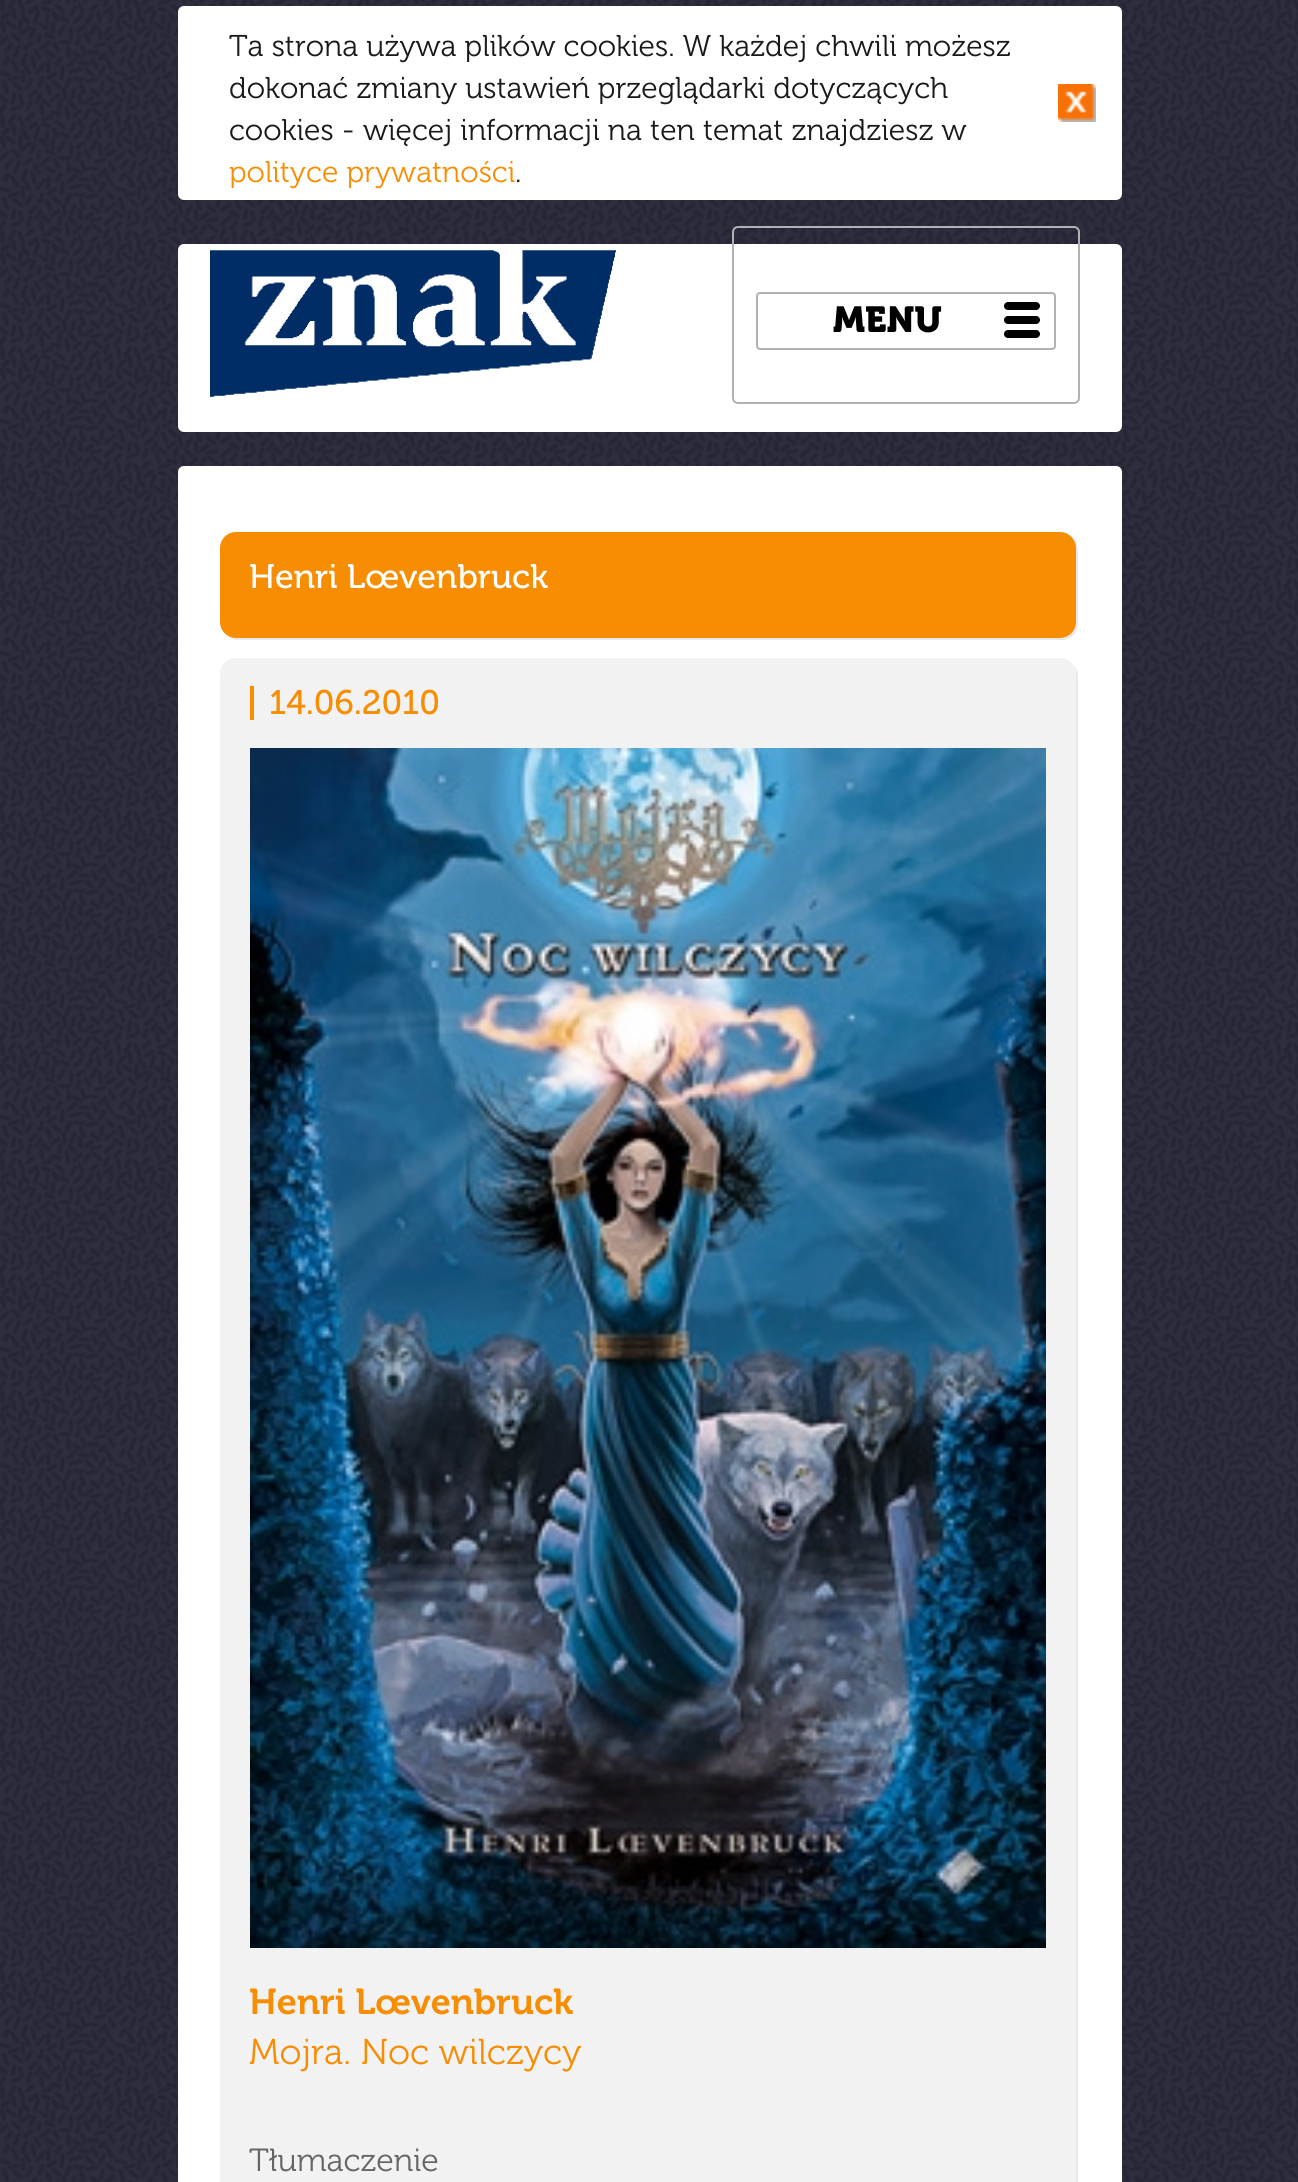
import math
import cairo

surface = cairo.ImageSurface(cairo.FORMAT_RGB24, 1298, 2182)
cr = cairo.Context(surface)
options = cairo.FontOptions()
options.set_hint_metrics(cairo.HINT_METRICS_OFF)
options.set_hint_style(cairo.HINT_STYLE_NONE)
cr.set_font_options(options)
cr.set_miter_limit(4)


def rgb(code):
    cr.set_source_rgb(*(v / 255 for v in bytes.fromhex(code[-6:])))


def rrect(x, y, w, h, r):
    cr.new_sub_path()
    for i, (u, v) in enumerate([(x + w - r, y + h - r), (x + r, y + h - r), (x + r, y + r), (x + w - r, y + r)]):
        cr.arc(u, v, r, i * math.pi / 2, (i + 1) * math.pi / 2)
    cr.close_path()


def image(path, x, y, w, h):
    cr.save()
    cr.set_source_surface(cairo.ImageSurface.create_from_png(path), x, y)
    cr.rectangle(x, y, w, h)
    cr.fill()
    cr.restore()


rgb("#ffffff")
cr.paint()
image("img/1.png", 0, 0, 1298, 2182)
rgb("#ffffff")
rrect(178, 6, 944, 194, 6)
cr.fill()
image("img/2.png", 1058, 84, 38, 38)
rrect(178, 244, 944, 188, 6)
cr.fill()
image("img/3.png", 210, 250, 406, 147)
rrect(733, 227, 346, 176, 5)
rgb("#b1b1b6")
cr.stroke()
rrect(757, 293, 298, 56, 3)
cr.stroke()
rgb("#000000")
rrect(1004, 302, 36, 8, 4)
cr.fill()
rrect(1004, 316, 36, 8, 4)
cr.fill()
rrect(1004, 330, 36, 8, 4)
cr.fill()
rgb("#ffffff")
rrect(178, 466, 944, 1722, 6)
cr.fill()
rgb("#e9e9e9")
cr.new_path()
cr.move_to(226, 634)
cr.curve_to(229, 638, 233, 640, 238, 640)
cr.line_to(1062, 640)
cr.curve_to(1071, 640, 1078, 633, 1078, 624)
cr.line_to(1078, 550)
cr.curve_to(1078, 545, 1076, 541, 1072, 538)
cr.curve_to(1075, 541, 1076, 544, 1076, 548)
cr.line_to(1076, 622)
cr.curve_to(1076, 631, 1069, 638, 1060, 638)
cr.line_to(236, 638)
cr.curve_to(232, 638, 229, 637, 226, 634)
cr.close_path()
cr.fill()
rgb("#f78d03")
rrect(221, 533, 854, 104, 15)
cr.fill_preserve()
cr.stroke()
rgb("#e9e9e9")
cr.new_path()
cr.move_to(226, 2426)
cr.curve_to(229, 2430, 233, 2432, 238, 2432)
cr.line_to(1062, 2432)
cr.curve_to(1071, 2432, 1078, 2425, 1078, 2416)
cr.line_to(1078, 676)
cr.curve_to(1078, 671, 1076, 667, 1072, 664)
cr.curve_to(1075, 667, 1076, 670, 1076, 674)
cr.line_to(1076, 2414)
cr.curve_to(1076, 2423, 1069, 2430, 1060, 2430)
cr.line_to(236, 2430)
cr.curve_to(232, 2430, 229, 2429, 226, 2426)
cr.close_path()
cr.fill()
rgb("#f2f2f2")
rrect(221, 659, 854, 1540, 15)
cr.fill_preserve()
cr.stroke()
rgb("#f78d03")
cr.rectangle(250, 686, 4, 34)
cr.fill()
image("img/4.png", 250, 748, 796, 1200)
cr.select_font_face("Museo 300 Light")
cr.set_font_size(30)
rgb("#1a1a1a")
for x, y, s in [
    (229, 56, "Ta strona używa plików cookies. W każdej chwili możesz"),
    (229, 98, "dokonać zmiany ustawień przeglądarki dotyczących"),
    (229, 140, "cookies - więcej informacji na ten temat znajdziesz w"),
]:
    cr.move_to(x, y)
    cr.show_text(s)
rgb("#f78d03")
cr.move_to(229, 182)
cr.show_text("polityce prywatności")
rgb("#1a1a1a")
cr.move_to(515, 182)
cr.show_text(".")
cr.select_font_face("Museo", cairo.FONT_SLANT_NORMAL, cairo.FONT_WEIGHT_BOLD)
cr.set_font_size(36)
rgb("#000000")
cr.move_to(833, 332)
cr.show_text("MENU")
cr.select_font_face("Museo")
cr.set_font_size(34)
rgb("#ffffff")
cr.move_to(249, 588)
cr.show_text("Henri Lœvenbruck")
rgb("#f78d03")
cr.move_to(269, 714)
cr.show_text("14.06.2010")
cr.select_font_face("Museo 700 SemiBold")
cr.set_font_size(36)
cr.move_to(249, 2014)
cr.show_text("Henri Lœvenbruck")
cr.select_font_face("Museo 300 Light")
cr.move_to(249, 2064)
cr.show_text("Mojra. Noc wilczycy")
cr.set_font_size(32)
rgb("#666666")
cr.move_to(249, 2171)
cr.show_text("Tłumaczenie")
surface.write_to_png("page.png")
